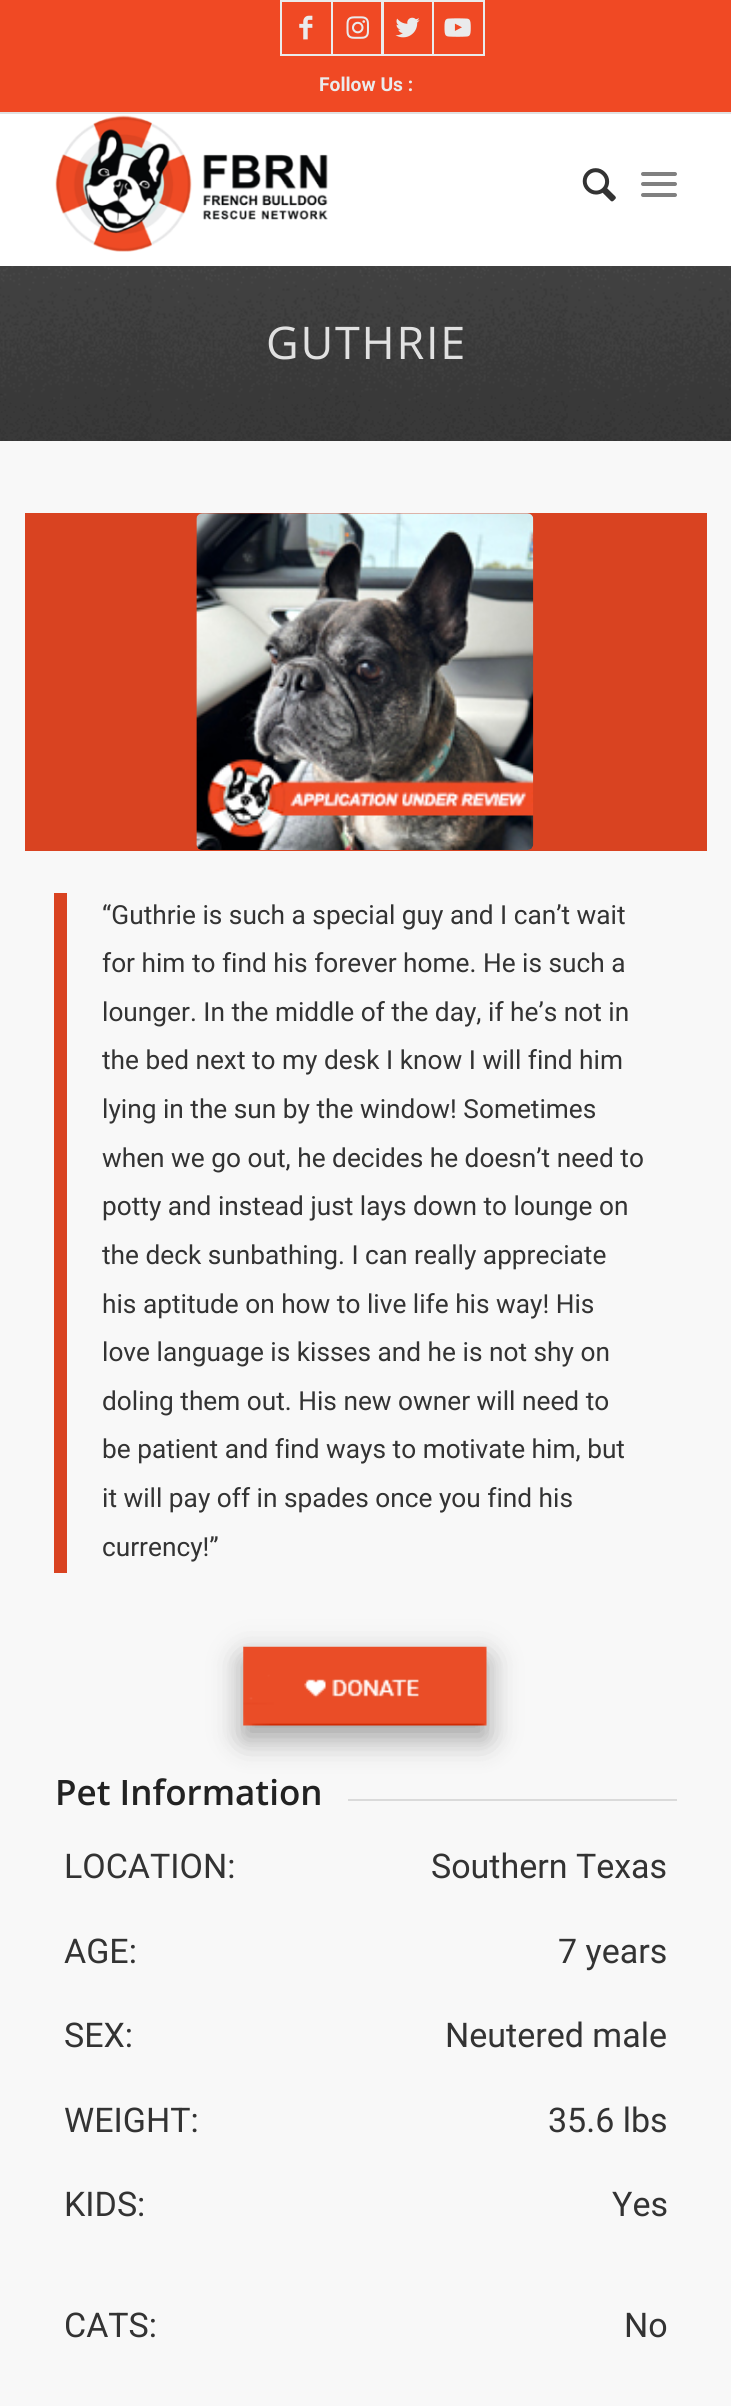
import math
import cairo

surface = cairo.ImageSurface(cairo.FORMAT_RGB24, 731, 2406)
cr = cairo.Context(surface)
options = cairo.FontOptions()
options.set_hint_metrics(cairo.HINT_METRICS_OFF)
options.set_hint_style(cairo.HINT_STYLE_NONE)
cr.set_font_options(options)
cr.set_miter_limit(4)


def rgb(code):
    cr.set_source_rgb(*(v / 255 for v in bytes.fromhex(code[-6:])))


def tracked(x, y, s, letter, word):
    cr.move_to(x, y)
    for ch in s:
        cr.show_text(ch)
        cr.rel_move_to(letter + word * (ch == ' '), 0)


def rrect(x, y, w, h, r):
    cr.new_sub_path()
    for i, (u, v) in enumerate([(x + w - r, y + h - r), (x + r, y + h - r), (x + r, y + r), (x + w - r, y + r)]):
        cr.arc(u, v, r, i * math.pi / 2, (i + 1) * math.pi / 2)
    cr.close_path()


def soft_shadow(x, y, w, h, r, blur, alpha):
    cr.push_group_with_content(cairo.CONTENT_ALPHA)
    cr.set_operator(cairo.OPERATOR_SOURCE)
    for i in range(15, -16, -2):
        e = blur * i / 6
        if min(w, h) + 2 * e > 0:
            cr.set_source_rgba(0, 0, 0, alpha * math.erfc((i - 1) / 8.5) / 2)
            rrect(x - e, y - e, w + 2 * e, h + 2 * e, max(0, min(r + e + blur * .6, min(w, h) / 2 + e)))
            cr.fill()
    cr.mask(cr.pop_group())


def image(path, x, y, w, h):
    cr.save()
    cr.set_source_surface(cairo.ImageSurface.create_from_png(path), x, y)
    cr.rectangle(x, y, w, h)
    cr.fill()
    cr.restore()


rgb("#333333")
cr.paint()
rgb("#f04924")
cr.rectangle(0, 0, 731, 112)
cr.fill()
rgb("#e1e1e1")
cr.rectangle(0, 112, 731, 2)
cr.fill()
cr.rectangle(281, 1, 51, 54)
rgb("#eaebec")
cr.stroke()
image("img/1.png", 299, 15, 14, 25)
cr.rectangle(332, 1, 50, 54)
cr.stroke()
image("img/2.png", 346, 16, 23, 23)
cr.rectangle(383, 1, 50, 54)
cr.stroke()
image("img/3.png", 395, 17, 25, 21)
cr.rectangle(433, 1, 51, 54)
cr.stroke()
image("img/4.png", 444, 18, 27, 19)
rgb("#ffffff")
cr.rectangle(0, 114, 731, 152)
cr.fill()
image("img/5.png", 55, 115, 273, 137)
image("img/6.png", 582, 168, 34, 34)
rgb("#808080")
rrect(641, 182, 36, 4, 2)
cr.fill()
rrect(641, 172, 36, 4, 2)
cr.fill()
rrect(641, 193, 36, 4, 2)
cr.fill()
image("img/7.png", 0, 266, 731, 175)
rgb("#f8f8f8")
cr.rectangle(0, 441, 731, 1965)
cr.fill()
rgb("#d94321")
cr.rectangle(25, 513, 682, 338)
cr.fill()
image("img/8.png", 196, 513, 338, 337)
cr.rectangle(54, 893, 13, 680)
cr.fill()
rgb("#000000")
soft_shadow(243, 1657, 244, 79, 0, 17.5, 0.19)
soft_shadow(243, 1661, 244, 79, 0, 14, 0.2)
image("img/9.png", 243, 1646, 244, 80)
rgb("#dadada")
cr.rectangle(348, 1799, 329, 2)
cr.fill()
cr.select_font_face("Roboto", cairo.FONT_SLANT_NORMAL, cairo.FONT_WEIGHT_BOLD)
cr.set_font_size(19.25)
rgb("#eaebec")
cr.move_to(319, 91)
cr.show_text("Follow Us :")
cr.select_font_face("Open Sans")
cr.set_font_size(45)
rgb("#e1e1e1")
tracked(266, 359, "GUTHRIE", 1.75, 0)
cr.select_font_face("Roboto")
cr.set_font_size(26.25)
rgb("#333333")
for x, y, s in [
    (102, 924, "“Guthrie is such a special guy and I can’t wait"),
    (102, 972, "for him to find his forever home. He is such a"),
    (102, 1021, "lounger. In the middle of the day, if he’s not in"),
    (102, 1069, "the bed next to my desk I know I will find him"),
    (102, 1118, "lying in the sun by the window! Sometimes"),
    (102, 1167, "when we go out, he decides he doesn’t need to"),
    (102, 1215, "potty and instead just lays down to lounge on"),
    (102, 1264, "the deck sunbathing. I can really appreciate"),
    (102, 1313, "his aptitude on how to live life his way! His"),
    (102, 1361, "love language is kisses and he is not shy on"),
    (102, 1410, "doling them out. His new owner will need to"),
    (102, 1458, "be patient and find ways to motivate him, but"),
    (102, 1507, "it will pay off in spades once you find his"),
    (102, 1556, "currency!”"),
]:
    cr.move_to(x, y)
    cr.show_text(s)
cr.select_font_face("Open Sans SemiBold")
cr.set_font_size(35)
rgb("#222222")
cr.move_to(55, 1805)
cr.show_text("Pet Information")
cr.select_font_face("Roboto")
cr.set_font_size(34)
rgb("#333333")
for x, y, s in [
    (64, 1878, "LOCATION:"),
    (431, 1878, "Southern Texas"),
    (64, 1963, "AGE:"),
    (558, 1963, "7 years"),
    (64, 2047, "SEX:"),
    (445, 2047, "Neutered male"),
    (64, 2132, "WEIGHT:"),
    (548, 2132, "35.6 lbs"),
    (64, 2216, "KIDS:"),
    (612, 2216, "Yes"),
    (64, 2337, "CATS:"),
    (624, 2337, "No"),
]:
    cr.move_to(x, y)
    cr.show_text(s)
surface.write_to_png("page.png")
